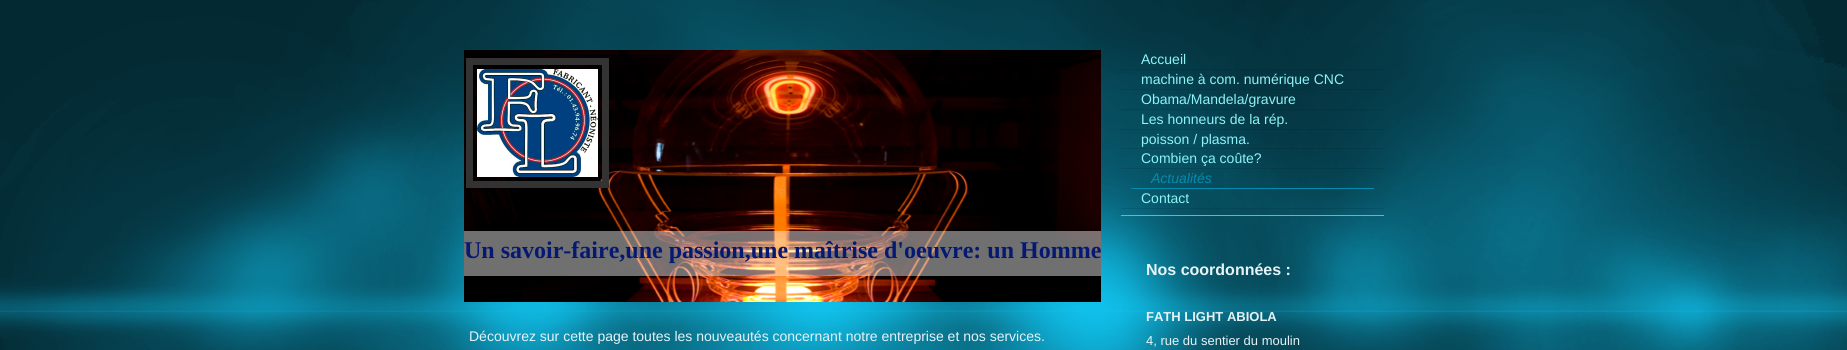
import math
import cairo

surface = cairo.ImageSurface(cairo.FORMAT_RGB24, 1847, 350)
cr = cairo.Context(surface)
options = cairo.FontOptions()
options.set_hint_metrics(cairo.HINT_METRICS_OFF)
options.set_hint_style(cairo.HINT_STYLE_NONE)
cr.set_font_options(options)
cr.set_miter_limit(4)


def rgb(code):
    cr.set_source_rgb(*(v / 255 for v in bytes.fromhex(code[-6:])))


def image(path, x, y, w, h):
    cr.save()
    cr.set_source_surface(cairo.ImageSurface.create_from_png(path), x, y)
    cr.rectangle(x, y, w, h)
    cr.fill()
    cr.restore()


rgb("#11cefc")
cr.paint()
image("img/1.png", 0, 0, 1847, 350)
image("img/2.png", 464, 50, 637, 252)
cr.rectangle(469.5, 61.5, 136, 123)
rgb("#333333")
cr.set_line_width(7)
cr.stroke()
image("img/3.png", 477, 69, 121, 108)
cr.set_source_rgba(1, 1, 1, 0.44)
cr.rectangle(464, 231, 637, 45)
cr.fill()
cr.set_source_rgba(0, 0, 0, 0.1)
cr.rectangle(1121, 69, 263, 1)
cr.fill()
cr.rectangle(1121, 89, 263, 1)
cr.fill()
cr.rectangle(1121, 109, 263, 1)
cr.fill()
cr.rectangle(1121, 129, 263, 1)
cr.fill()
cr.rectangle(1121, 148, 263, 1)
cr.fill()
cr.rectangle(1121, 168, 263, 1)
cr.fill()
rgb("#048cae")
cr.rectangle(1131, 188, 243, 1)
cr.fill()
cr.set_source_rgba(0, 0, 0, 0.1)
cr.rectangle(1121, 208, 263, 1)
cr.fill()
rgb("#1cd6de")
cr.rectangle(1121, 215, 263, 1)
cr.fill()
cr.select_font_face("Liberation Serif", cairo.FONT_SLANT_NORMAL, cairo.FONT_WEIGHT_BOLD)
cr.set_font_size(24)
rgb("#051972")
cr.move_to(464, 258)
cr.show_text("Un savoir-faire,une passion,une maîtrise d'oeuvre: un Homme")
cr.select_font_face("Liberation Sans")
cr.set_font_size(14)
rgb("#e6f3f6")
cr.move_to(469, 341)
cr.show_text("Découvrez sur cette page toutes les nouveautés concernant notre entreprise et nos services.")
rgb("#8cf3f7")
for x, y, s in [
    (1141, 64, "Accueil"),
    (1141, 84, "machine à com. numérique CNC"),
    (1141, 104, "Obama/Mandela/gravure"),
    (1141, 124, "Les honneurs de la rép."),
    (1141, 144, "poisson / plasma."),
    (1141, 163, "Combien ça coûte?"),
]:
    cr.move_to(x, y)
    cr.show_text(s)
cr.select_font_face("Liberation Sans", cairo.FONT_SLANT_ITALIC)
rgb("#048cae")
cr.move_to(1151, 183)
cr.show_text("Actualités")
cr.select_font_face("Liberation Sans")
rgb("#8cf3f7")
cr.move_to(1141, 203)
cr.show_text("Contact")
cr.select_font_face("Liberation Sans", cairo.FONT_SLANT_NORMAL, cairo.FONT_WEIGHT_BOLD)
cr.set_font_size(16)
rgb("#e6f3f6")
cr.move_to(1146, 275)
cr.show_text("Nos coordonnées :")
cr.set_font_size(13)
cr.move_to(1146, 321)
cr.show_text("FATH LIGHT ABIOLA")
cr.select_font_face("Liberation Sans")
cr.move_to(1146, 345)
cr.show_text("4, rue du sentier du moulin")
surface.write_to_png("page.png")
